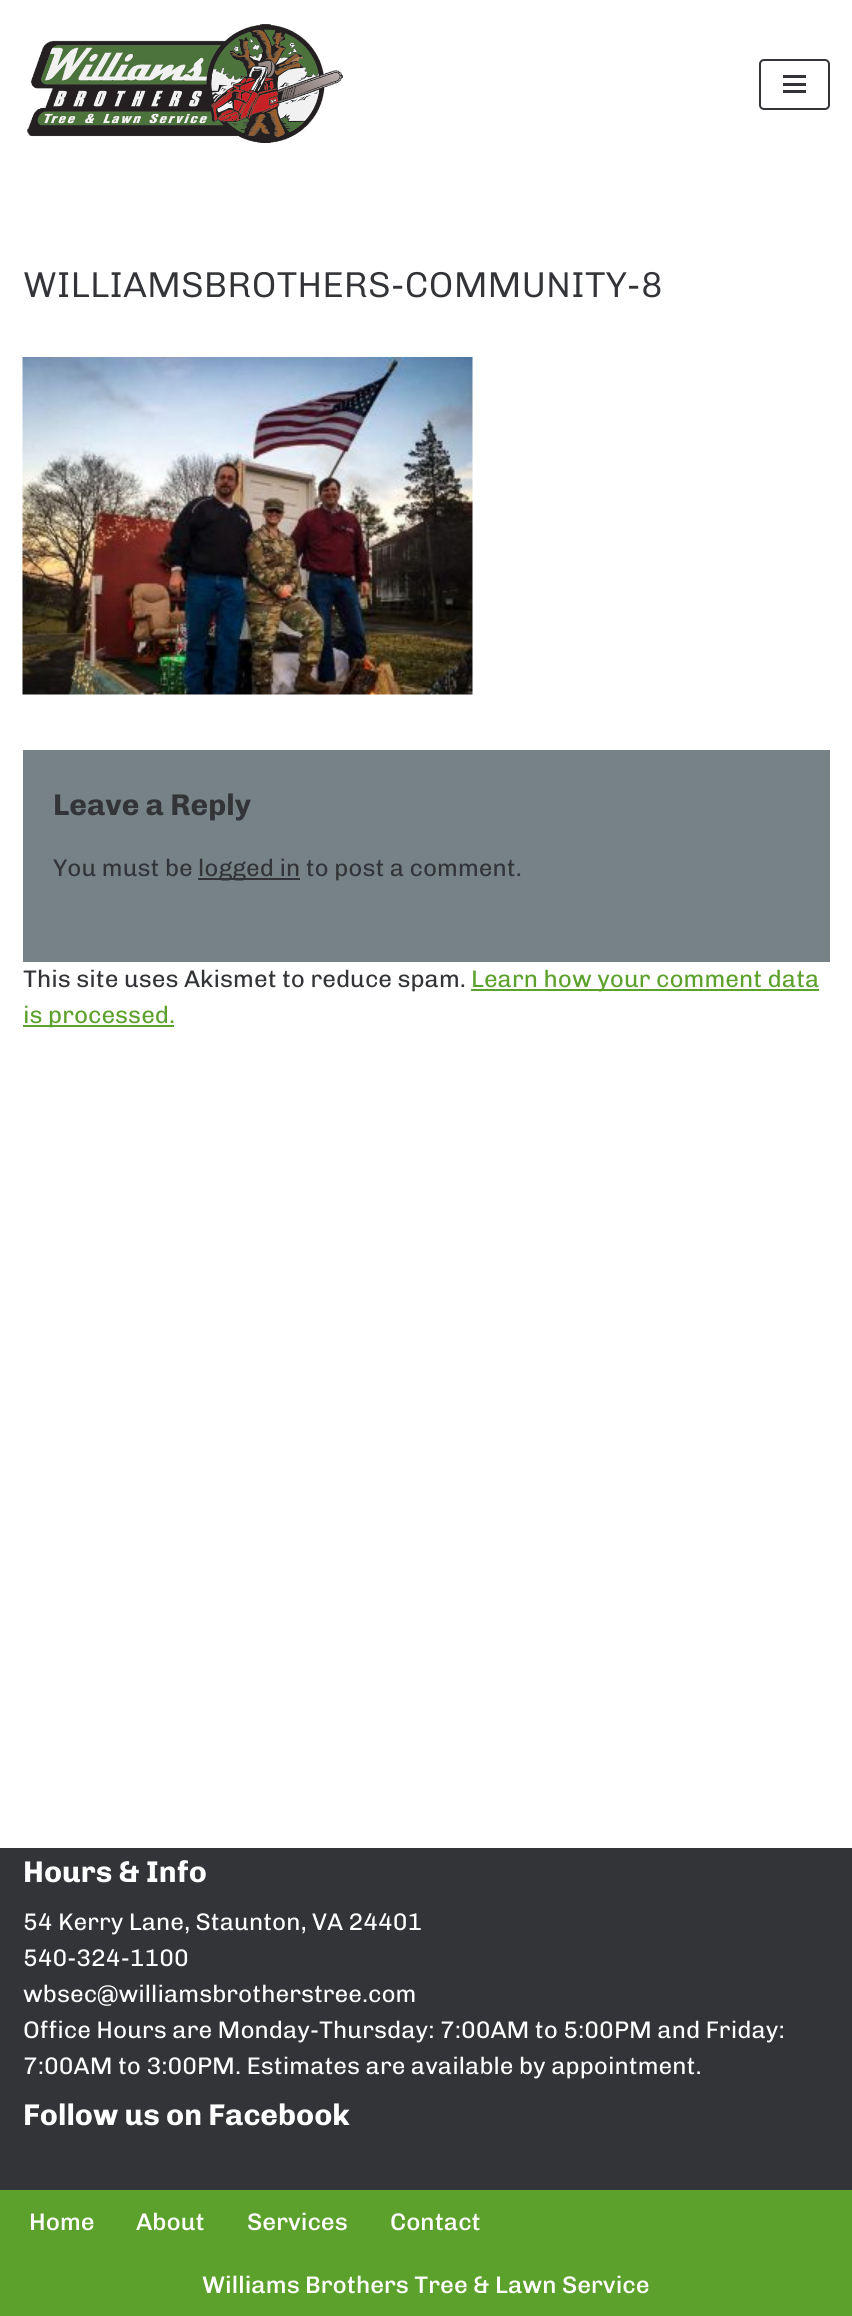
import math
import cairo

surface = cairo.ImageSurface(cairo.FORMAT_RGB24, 852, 2316)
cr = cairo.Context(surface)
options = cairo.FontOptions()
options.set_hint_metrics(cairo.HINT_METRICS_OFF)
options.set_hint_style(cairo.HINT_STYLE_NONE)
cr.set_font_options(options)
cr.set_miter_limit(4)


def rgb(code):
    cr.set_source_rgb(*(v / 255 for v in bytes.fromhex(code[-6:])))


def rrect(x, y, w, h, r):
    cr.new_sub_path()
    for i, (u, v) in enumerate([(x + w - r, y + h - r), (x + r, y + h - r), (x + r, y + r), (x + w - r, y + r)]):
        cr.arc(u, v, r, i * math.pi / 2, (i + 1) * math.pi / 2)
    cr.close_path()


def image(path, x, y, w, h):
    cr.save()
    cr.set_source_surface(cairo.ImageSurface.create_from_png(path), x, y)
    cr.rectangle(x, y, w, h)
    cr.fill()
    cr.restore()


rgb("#ffffff")
cr.paint()
image("img/1.png", 27, 24, 316, 119)
rrect(760, 60, 69, 49, 4)
rgb("#323437")
cr.stroke()
for x, y, w, h, color in [
    (783, 75, 23, 3, "#323437"),
    (783, 83, 23, 3, "#323437"),
    (783, 90, 23, 3, "#323437"),
]:
    rgb(color)
    cr.rectangle(x, y, w, h)
    cr.fill()
image("img/2.png", 22, 357, 451, 338)
for x, y, w, h, color in [
    (23, 750, 807, 212, "#768285"),
    (198, 878, 102, 2, "#323437"),
    (471, 989, 348, 2, "#5da12d"),
    (23, 1025, 151, 2, "#5da12d"),
    (0, 1848, 852, 342, "#323437"),
    (0, 2190, 852, 126, "#5da12d"),
]:
    rgb(color)
    cr.rectangle(x, y, w, h)
    cr.fill()
cr.select_font_face("Chivo Light")
cr.set_font_size(36)
rgb("#323437")
cr.move_to(23, 297)
cr.show_text("WILLIAMSBROTHERS-COMMUNITY-8")
cr.select_font_face("Chivo", cairo.FONT_SLANT_NORMAL, cairo.FONT_WEIGHT_BOLD)
cr.set_font_size(30)
cr.move_to(53, 815)
cr.show_text("Leave a Reply")
cr.select_font_face("Chivo")
cr.set_font_size(24)
for x, y, s in [
    (53, 876, "You must be"),
    (198, 876, "logged in to post a comment."),
    (23, 987, "This site uses Akismet to reduce spam."),
]:
    cr.move_to(x, y)
    cr.show_text(s)
rgb("#5da12d")
cr.move_to(471, 987)
cr.show_text("Learn how your comment data")
cr.move_to(23, 1023)
cr.show_text("is processed.")
cr.select_font_face("Chivo", cairo.FONT_SLANT_NORMAL, cairo.FONT_WEIGHT_BOLD)
cr.set_font_size(30)
rgb("#ffffff")
cr.move_to(23, 1882)
cr.show_text("Hours & Info")
cr.select_font_face("Chivo")
cr.set_font_size(24)
for x, y, s in [
    (23, 1930, "54 Kerry Lane, Staunton, VA 24401"),
    (23, 1966, "540-324-1100"),
    (23, 2002, "wbsec@williamsbrotherstree.com"),
    (23, 2038, "Office Hours are Monday-Thursday: 7:00AM to 5:00PM and Friday:"),
    (23, 2074, "7:00AM to 3:00PM. Estimates are available by appointment."),
]:
    cr.move_to(x, y)
    cr.show_text(s)
cr.select_font_face("Chivo", cairo.FONT_SLANT_NORMAL, cairo.FONT_WEIGHT_BOLD)
cr.set_font_size(30)
cr.move_to(23, 2125)
cr.show_text("Follow us on Facebook")
cr.select_font_face("Chivo Medium")
cr.set_font_size(24)
for x, y, s in [
    (29, 2230, "Home"),
    (136, 2230, "About"),
    (247, 2230, "Services"),
    (390, 2230, "Contact"),
    (202, 2293, "Williams Brothers Tree & Lawn Service"),
]:
    cr.move_to(x, y)
    cr.show_text(s)
surface.write_to_png("page.png")
